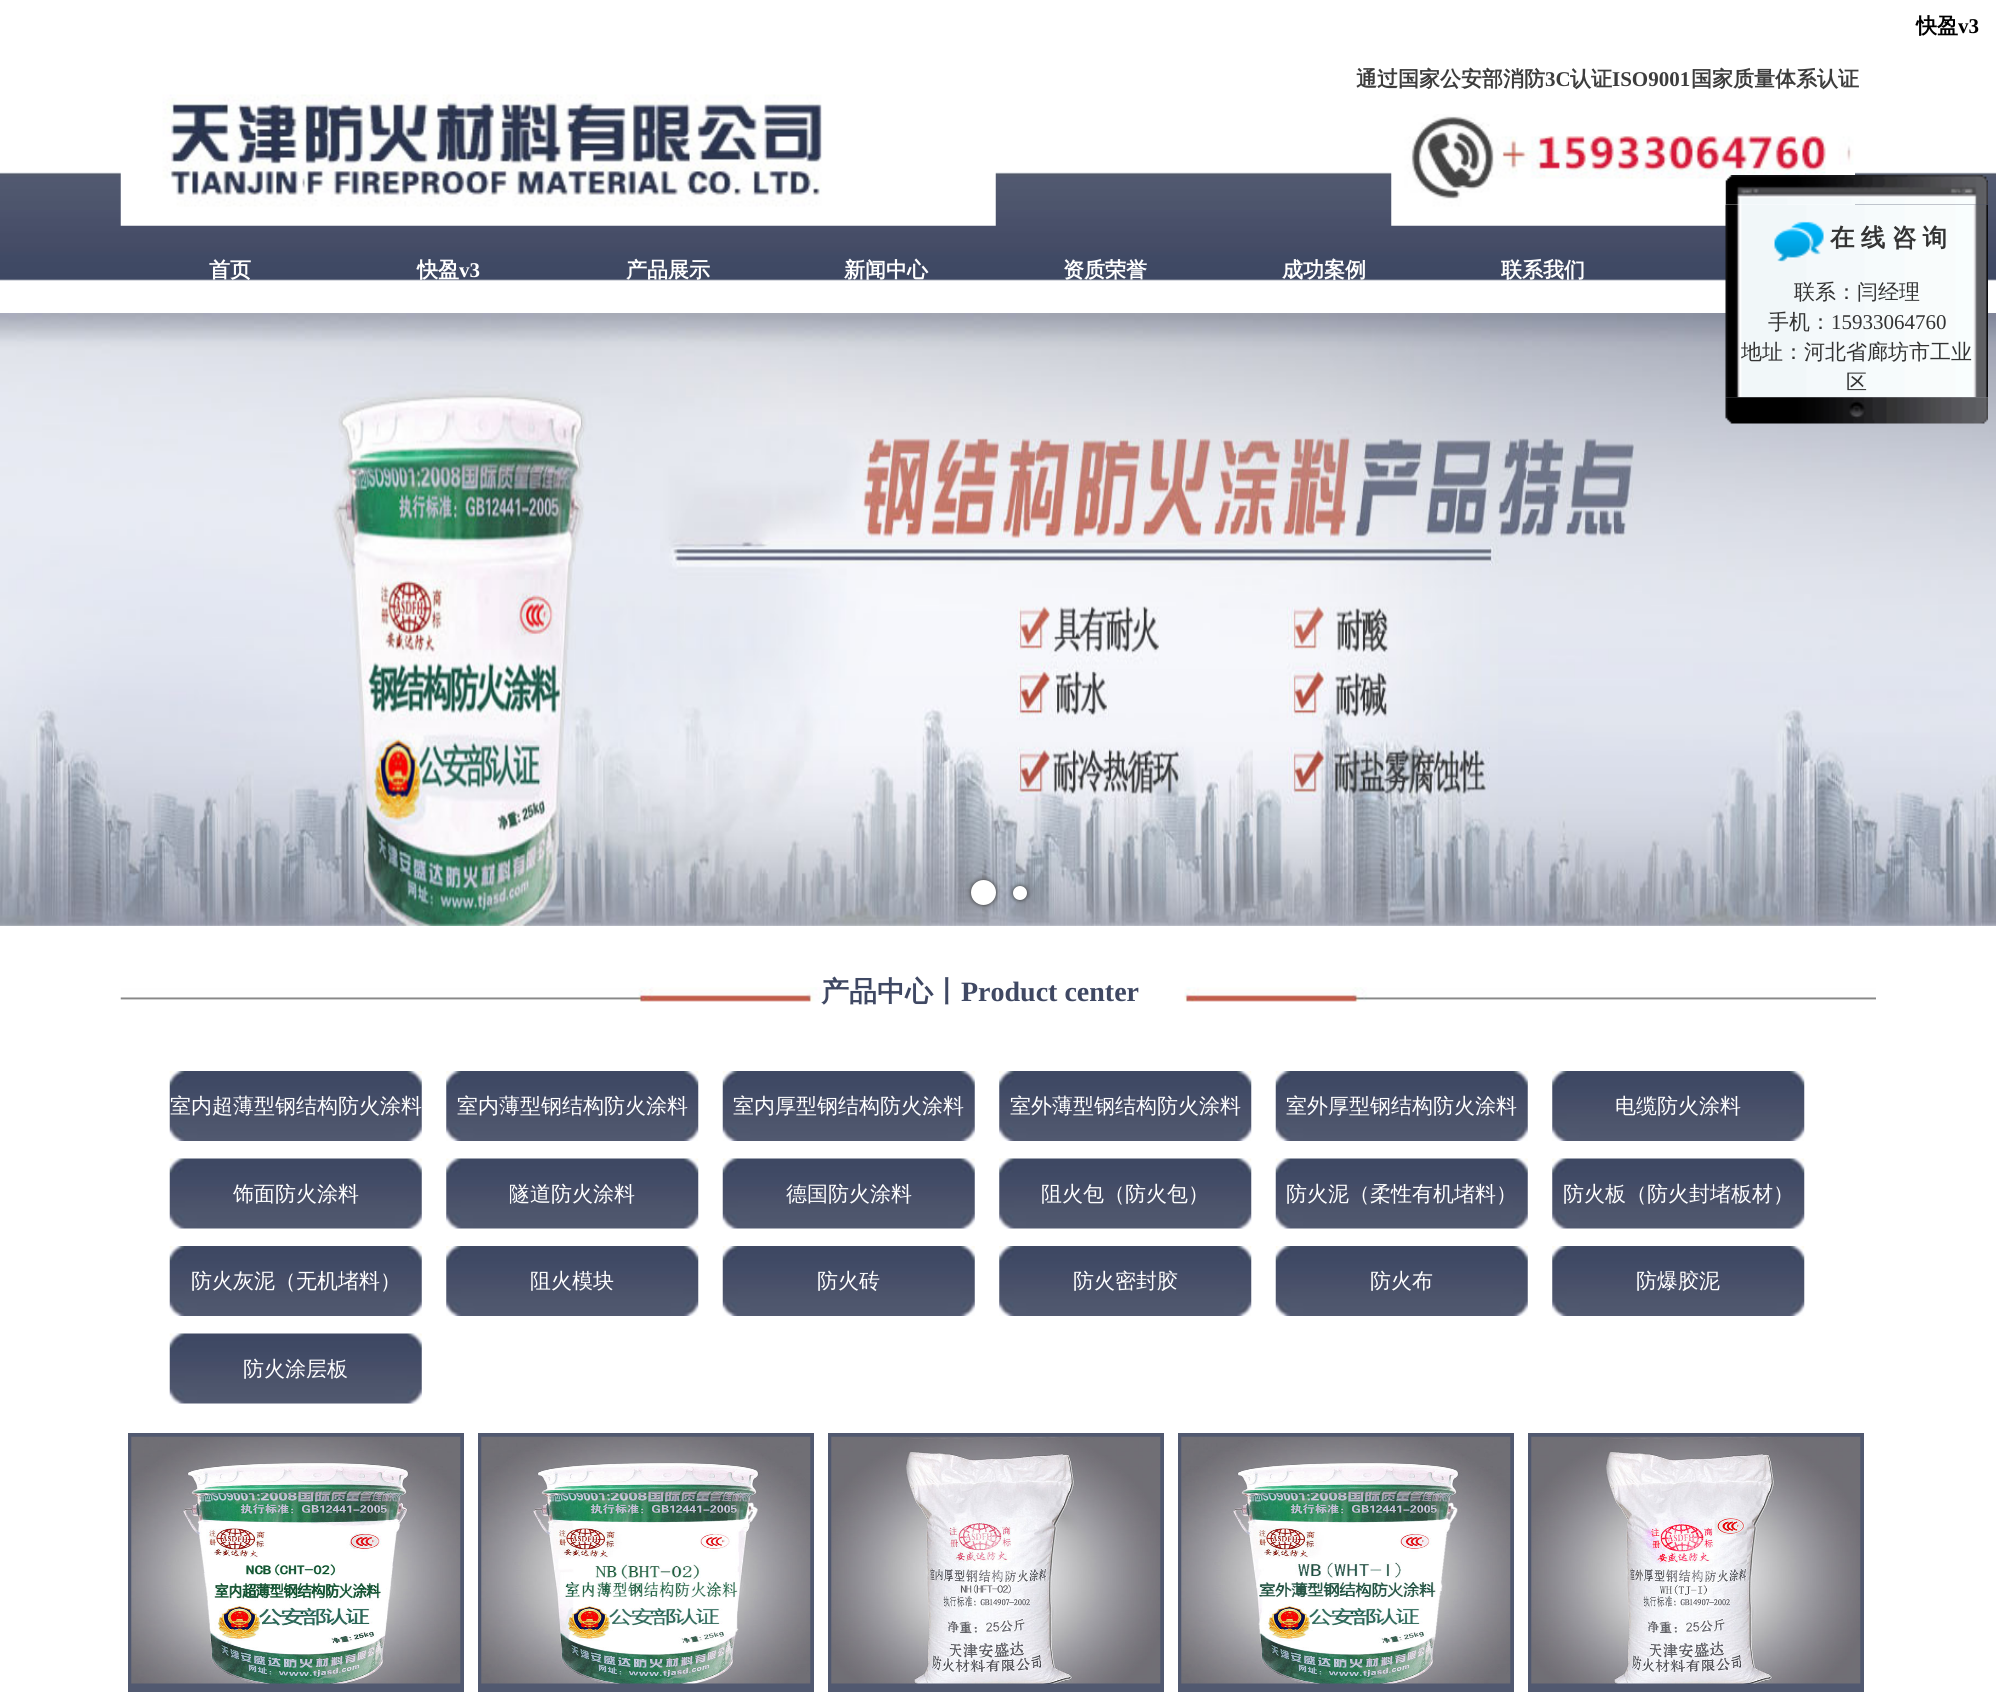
import math
import cairo

surface = cairo.ImageSurface(cairo.FORMAT_RGB24, 1996, 1692)
cr = cairo.Context(surface)
options = cairo.FontOptions()
options.set_hint_metrics(cairo.HINT_METRICS_OFF)
options.set_hint_style(cairo.HINT_STYLE_NONE)
cr.set_font_options(options)
cr.set_miter_limit(4)


def rgb(code):
    cr.set_source_rgb(*(v / 255 for v in bytes.fromhex(code[-6:])))


def tracked(x, y, s, letter, word):
    cr.move_to(x, y)
    for ch in s:
        cr.show_text(ch)
        cr.rel_move_to(letter + word * (ch == ' '), 0)


def rrect(x, y, w, h, r):
    cr.new_sub_path()
    for i, (u, v) in enumerate([(x + w - r, y + h - r), (x + r, y + h - r), (x + r, y + r), (x + w - r, y + r)]):
        cr.arc(u, v, r, i * math.pi / 2, (i + 1) * math.pi / 2)
    cr.close_path()


def soft_shadow(x, y, w, h, r, blur, alpha):
    cr.push_group_with_content(cairo.CONTENT_ALPHA)
    cr.set_operator(cairo.OPERATOR_SOURCE)
    for i in range(15, -16, -2):
        e = blur * i / 6
        if min(w, h) + 2 * e > 0:
            cr.set_source_rgba(0, 0, 0, alpha * math.erfc((i - 1) / 8.5) / 2)
            rrect(x - e, y - e, w + 2 * e, h + 2 * e, max(0, min(r + e + blur * .6, min(w, h) / 2 + e)))
            cr.fill()
    cr.mask(cr.pop_group())


def image(path, x, y, w, h):
    cr.save()
    cr.set_source_surface(cairo.ImageSurface.create_from_png(path), x, y)
    cr.rectangle(x, y, w, h)
    cr.fill()
    cr.restore()


rgb("#ffffff")
cr.paint()
image("img/1.png", 0, 172, 1996, 109)
image("img/2.png", 1391, 114, 464, 112)
image("img/3.png", 120, 94, 876, 132)
image("img/8.png", 0, 313, 1996, 613)
image("img/5.png", 1725, 204, 263, 194)
image("img/4.png", 1725, 175, 263, 30)
image("img/6.png", 1773, 221, 52, 42)
image("img/7.png", 1725, 397, 263, 27)
rgb("#333333")
soft_shadow(971, 880, 25, 25, 12.5, 2.5, 1)
rgb("#ffffff")
cr.arc(983.5, 892.5, 12.5, 0, 2 * math.pi)
cr.fill()
rgb("#333333")
soft_shadow(1013, 886, 14, 14, 7, 2.5, 1)
rgb("#ffffff")
cr.arc(1020, 893, 7, 0, 2 * math.pi)
cr.fill()
image("img/9.png", 120, 987, 1756, 15)
image("img/10.png", 169, 1071, 253, 70)
image("img/11.png", 446, 1071, 253, 70)
image("img/10.png", 722, 1071, 253, 70)
image("img/12.png", 999, 1071, 253, 70)
image("img/13.png", 1275, 1071, 253, 70)
image("img/12.png", 1552, 1071, 253, 70)
image("img/14.png", 169, 1158, 253, 71)
image("img/15.png", 446, 1158, 253, 71)
image("img/14.png", 722, 1158, 253, 71)
image("img/16.png", 999, 1158, 253, 71)
image("img/17.png", 1275, 1158, 253, 71)
image("img/16.png", 1552, 1158, 253, 71)
image("img/10.png", 169, 1246, 253, 70)
image("img/11.png", 446, 1246, 253, 70)
image("img/10.png", 722, 1246, 253, 70)
image("img/12.png", 999, 1246, 253, 70)
image("img/13.png", 1275, 1246, 253, 70)
image("img/12.png", 1552, 1246, 253, 70)
image("img/14.png", 169, 1333, 253, 71)
rgb("#515970")
cr.rectangle(128, 1433, 336, 259)
cr.fill()
image("img/18.png", 131, 1436, 330, 248)
cr.rectangle(478, 1433, 336, 259)
cr.fill()
image("img/19.png", 481, 1436, 330, 248)
cr.rectangle(828, 1433, 336, 259)
cr.fill()
image("img/20.png", 831, 1436, 330, 248)
cr.rectangle(1178, 1433, 336, 259)
cr.fill()
image("img/21.png", 1181, 1436, 330, 248)
cr.rectangle(1528, 1433, 336, 259)
cr.fill()
image("img/22.png", 1531, 1436, 330, 248)
cr.select_font_face("WenQuanYi Zen Hei", cairo.FONT_SLANT_NORMAL, cairo.FONT_WEIGHT_BOLD)
cr.set_font_size(21)
rgb("#000000")
cr.move_to(1916, 33)
cr.show_text("快盈")
cr.select_font_face("Liberation Serif", cairo.FONT_SLANT_NORMAL, cairo.FONT_WEIGHT_BOLD)
cr.move_to(1958, 33)
cr.show_text("v3")
cr.select_font_face("WenQuanYi Zen Hei", cairo.FONT_SLANT_NORMAL, cairo.FONT_WEIGHT_BOLD)
rgb("#3d3d3d")
cr.move_to(1356, 86)
cr.show_text("通过国家公安部消防")
cr.select_font_face("Liberation Serif", cairo.FONT_SLANT_NORMAL, cairo.FONT_WEIGHT_BOLD)
cr.move_to(1545, 86)
cr.show_text("3C")
cr.select_font_face("WenQuanYi Zen Hei", cairo.FONT_SLANT_NORMAL, cairo.FONT_WEIGHT_BOLD)
cr.move_to(1570, 86)
cr.show_text("认证")
cr.select_font_face("Liberation Serif", cairo.FONT_SLANT_NORMAL, cairo.FONT_WEIGHT_BOLD)
cr.move_to(1612, 86)
cr.show_text("ISO9001")
cr.select_font_face("WenQuanYi Zen Hei", cairo.FONT_SLANT_NORMAL, cairo.FONT_WEIGHT_BOLD)
cr.move_to(1691, 86)
cr.show_text("国家质量体系认证")
rgb("#ffffff")
cr.move_to(209, 277)
cr.show_text("首页")
cr.move_to(417, 277)
cr.show_text("快盈")
cr.select_font_face("Liberation Serif", cairo.FONT_SLANT_NORMAL, cairo.FONT_WEIGHT_BOLD)
cr.move_to(459, 277)
cr.show_text("v3")
cr.select_font_face("WenQuanYi Zen Hei", cairo.FONT_SLANT_NORMAL, cairo.FONT_WEIGHT_BOLD)
for x, y, s in [
    (626, 277, "产品展示"),
    (844, 277, "新闻中心"),
    (1063, 277, "资质荣誉"),
    (1282, 277, "成功案例"),
    (1501, 277, "联系我们"),
]:
    cr.move_to(x, y)
    cr.show_text(s)
cr.set_font_size(24.5)
rgb("#333333")
tracked(1830, 246, "在 线 咨 询", 0, -1)
cr.select_font_face("WenQuanYi Zen Hei Medium")
cr.set_font_size(21)
cr.move_to(1794, 299)
cr.show_text("联系：闫经理")
cr.move_to(1768, 329)
cr.show_text("手机：")
cr.select_font_face("Liberation Serif")
cr.move_to(1831, 329)
cr.show_text("15933064760")
cr.select_font_face("WenQuanYi Zen Hei Medium")
cr.move_to(1741, 359)
cr.show_text("地址：河北省廊坊市工业")
cr.move_to(1846, 389)
cr.show_text("区")
cr.select_font_face("WenQuanYi Zen Hei", cairo.FONT_SLANT_NORMAL, cairo.FONT_WEIGHT_BOLD)
cr.set_font_size(28)
rgb("#3f4863")
cr.move_to(821, 1001)
cr.show_text("产品中心丨")
cr.select_font_face("Liberation Serif", cairo.FONT_SLANT_NORMAL, cairo.FONT_WEIGHT_BOLD)
cr.move_to(961, 1001)
cr.show_text("Product center")
cr.select_font_face("WenQuanYi Zen Hei Medium")
cr.set_font_size(21)
rgb("#ffffff")
for x, y, s in [
    (170, 1113, "室内超薄型钢结构防火涂料"),
    (457, 1113, "室内薄型钢结构防火涂料"),
    (733, 1113, "室内厚型钢结构防火涂料"),
    (1010, 1113, "室外薄型钢结构防火涂料"),
    (1286, 1113, "室外厚型钢结构防火涂料"),
    (1615, 1113, "电缆防火涂料"),
    (233, 1201, "饰面防火涂料"),
    (509, 1201, "隧道防火涂料"),
    (786, 1201, "德国防火涂料"),
    (1041, 1201, "阻火包（防火包）"),
    (1286, 1201, "防火泥（柔性有机堵料）"),
    (1563, 1201, "防火板（防火封堵板材）"),
    (191, 1288, "防火灰泥（无机堵料）"),
    (530, 1288, "阻火模块"),
    (817, 1288, "防火砖"),
    (1073, 1288, "防火密封胶"),
    (1370, 1288, "防火布"),
    (1636, 1288, "防爆胶泥"),
    (243, 1376, "防火涂层板"),
]:
    cr.move_to(x, y)
    cr.show_text(s)
surface.write_to_png("page.png")
